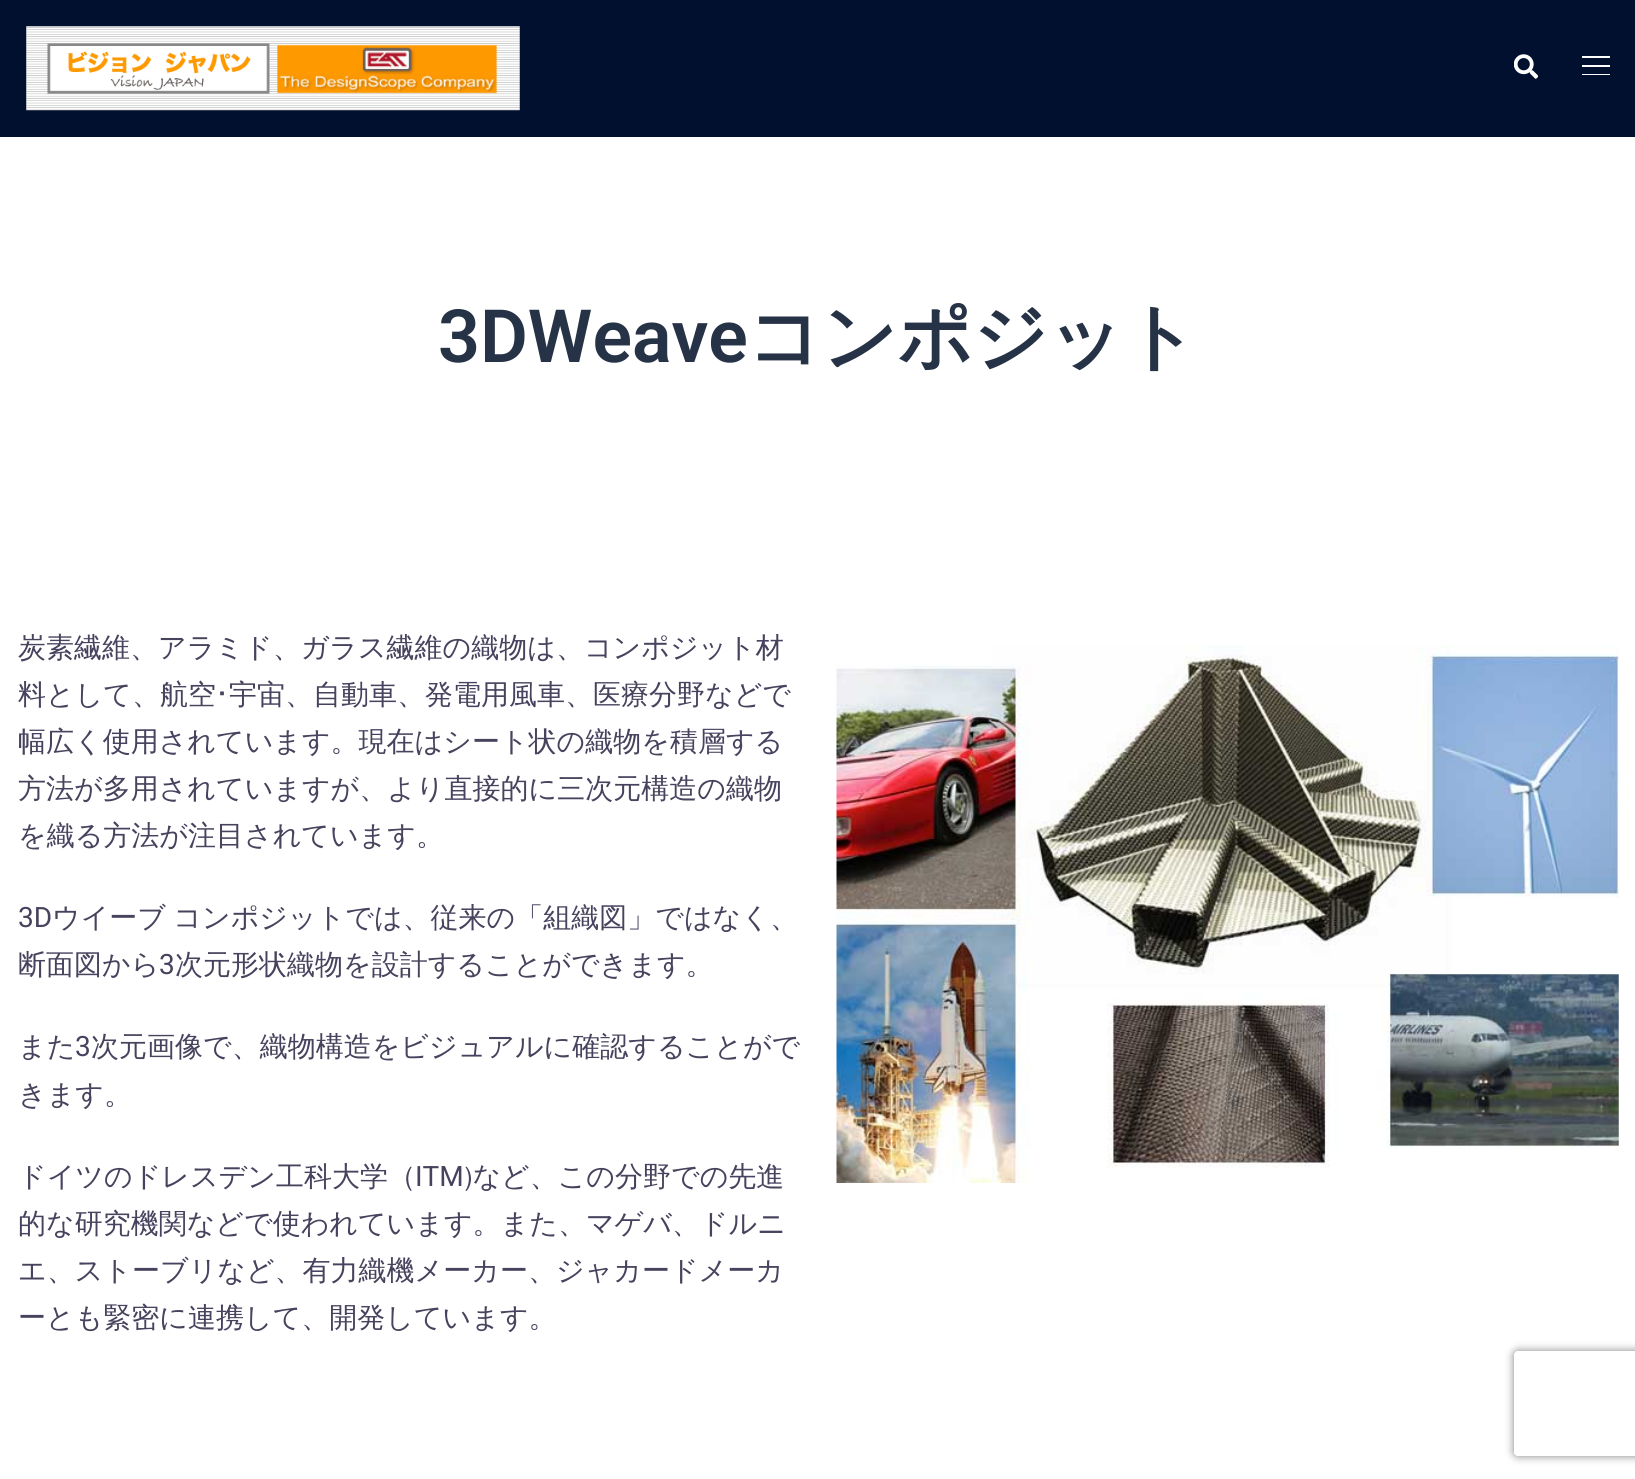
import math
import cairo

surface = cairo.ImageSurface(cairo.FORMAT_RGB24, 1635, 1479)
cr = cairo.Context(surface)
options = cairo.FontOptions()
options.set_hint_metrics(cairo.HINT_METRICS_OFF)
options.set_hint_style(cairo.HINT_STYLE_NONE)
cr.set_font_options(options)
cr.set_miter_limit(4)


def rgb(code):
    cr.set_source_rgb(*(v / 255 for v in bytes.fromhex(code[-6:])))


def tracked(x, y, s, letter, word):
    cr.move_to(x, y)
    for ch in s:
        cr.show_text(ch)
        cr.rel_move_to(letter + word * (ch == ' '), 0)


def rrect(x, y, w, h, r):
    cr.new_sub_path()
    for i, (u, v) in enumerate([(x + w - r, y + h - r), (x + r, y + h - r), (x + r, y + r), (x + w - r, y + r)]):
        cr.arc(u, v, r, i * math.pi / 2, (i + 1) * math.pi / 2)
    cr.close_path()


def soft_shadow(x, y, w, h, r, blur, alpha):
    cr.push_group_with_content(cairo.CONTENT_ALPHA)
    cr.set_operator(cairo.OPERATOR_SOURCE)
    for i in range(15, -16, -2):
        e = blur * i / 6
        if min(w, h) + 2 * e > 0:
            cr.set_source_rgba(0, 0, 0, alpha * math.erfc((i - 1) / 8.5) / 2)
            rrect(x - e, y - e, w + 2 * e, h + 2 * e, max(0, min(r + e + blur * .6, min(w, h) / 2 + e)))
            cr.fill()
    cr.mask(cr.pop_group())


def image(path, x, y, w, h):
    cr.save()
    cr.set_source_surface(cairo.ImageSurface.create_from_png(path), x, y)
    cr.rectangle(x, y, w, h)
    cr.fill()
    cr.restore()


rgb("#ffffff")
cr.paint()
rgb("#00102e")
cr.rectangle(0, 0, 1635, 137)
cr.fill()
image("img/1.png", 26, 26, 494, 85)
image("img/2.png", 1514, 54, 24, 25)
for x, y, w, h, color in [
    (1582, 56, 28, 2, "#ffffff"),
    (1582, 65, 28, 2, "#ffffff"),
    (1582, 74, 28, 1, "#ffffff"),
]:
    rgb(color)
    cr.rectangle(x, y, w, h)
    cr.fill()
image("img/3.png", 836, 645, 783, 538)
cr.save()
cr.set_fill_rule(cairo.FILL_RULE_EVEN_ODD)
cr.new_path()
cr.move_to(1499, 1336)
cr.line_to(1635, 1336)
cr.line_to(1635, 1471)
cr.line_to(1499, 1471)
cr.close_path()
cr.move_to(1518, 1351)
cr.line_to(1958, 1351)
cr.curve_to(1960, 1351, 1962, 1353, 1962, 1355)
cr.line_to(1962, 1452)
cr.curve_to(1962, 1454, 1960, 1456, 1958, 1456)
cr.line_to(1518, 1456)
cr.curve_to(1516, 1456, 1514, 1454, 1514, 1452)
cr.line_to(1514, 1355)
cr.curve_to(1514, 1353, 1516, 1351, 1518, 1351)
cr.close_path()
cr.clip()
rgb("#808080")
soft_shadow(1514, 1351, 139, 105, 4, 4.5, 1)
cr.restore()
cr.select_font_face("Roboto SemiBold")
cr.set_font_size(73.5)
rgb("#263246")
cr.move_to(438, 362)
cr.show_text("3DWeave")
cr.select_font_face("WenQuanYi Zen Hei", cairo.FONT_SLANT_NORMAL, cairo.FONT_WEIGHT_BOLD)
cr.move_to(747, 362)
cr.show_text("コンポジット")
cr.select_font_face("WenQuanYi Zen Hei Medium")
cr.set_font_size(28)
rgb("#47425d")
cr.move_to(18, 657)
cr.show_text("炭素繊維、アラミド、ガラス繊維の織物は、コンポジット材")
cr.move_to(18, 704)
cr.show_text("料として、航空")
cr.select_font_face("IPAPGothic")
cr.move_to(215, 704)
cr.show_text("･")
cr.select_font_face("WenQuanYi Zen Hei Medium")
for x, y, s in [
    (229, 704, "宇宙、自動車、発電用風車、医療分野などで"),
    (18, 751, "幅広く使用されています。現在はシート状の織物を積層する"),
    (18, 798, "方法が多用されていますが、より直接的に三次元構造の織物"),
    (18, 845, "を織る方法が注目されています。"),
]:
    cr.move_to(x, y)
    cr.show_text(s)
cr.select_font_face("Roboto")
cr.move_to(18, 927)
cr.show_text("3D")
cr.select_font_face("WenQuanYi Zen Hei Medium")
tracked(52, 927, "ウイーブ コンポジットでは、従来の「組織図」ではなく、", 0, -1)
cr.move_to(18, 974)
cr.show_text("断面図から")
cr.select_font_face("Roboto")
cr.move_to(159, 974)
cr.show_text("3")
cr.select_font_face("WenQuanYi Zen Hei Medium")
cr.move_to(175, 974)
cr.show_text("次元形状織物を設計することができます。")
cr.move_to(18, 1056)
cr.show_text("また")
cr.select_font_face("Roboto")
cr.move_to(75, 1056)
cr.show_text("3")
cr.select_font_face("WenQuanYi Zen Hei Medium")
for x, y, s in [
    (91, 1056, "次元画像で、織物構造をビジュアルに確認することがで"),
    (18, 1104, "きます。"),
    (18, 1186, "ドイツのドレスデン工科大学（"),
]:
    cr.move_to(x, y)
    cr.show_text(s)
cr.select_font_face("Roboto")
cr.move_to(415, 1186)
cr.show_text("ITM")
cr.select_font_face("WenQuanYi Zen Hei Medium")
for x, y, s in [
    (464, 1186, ")など、この分野での先進"),
    (18, 1233, "的な研究機関などで使われています。また、マゲバ、ドルニ"),
    (18, 1280, "エ、ストーブリなど、有力織機メーカー、ジャカードメーカ"),
    (18, 1327, "ーとも緊密に連携して、開発しています。"),
]:
    cr.move_to(x, y)
    cr.show_text(s)
surface.write_to_png("page.png")
